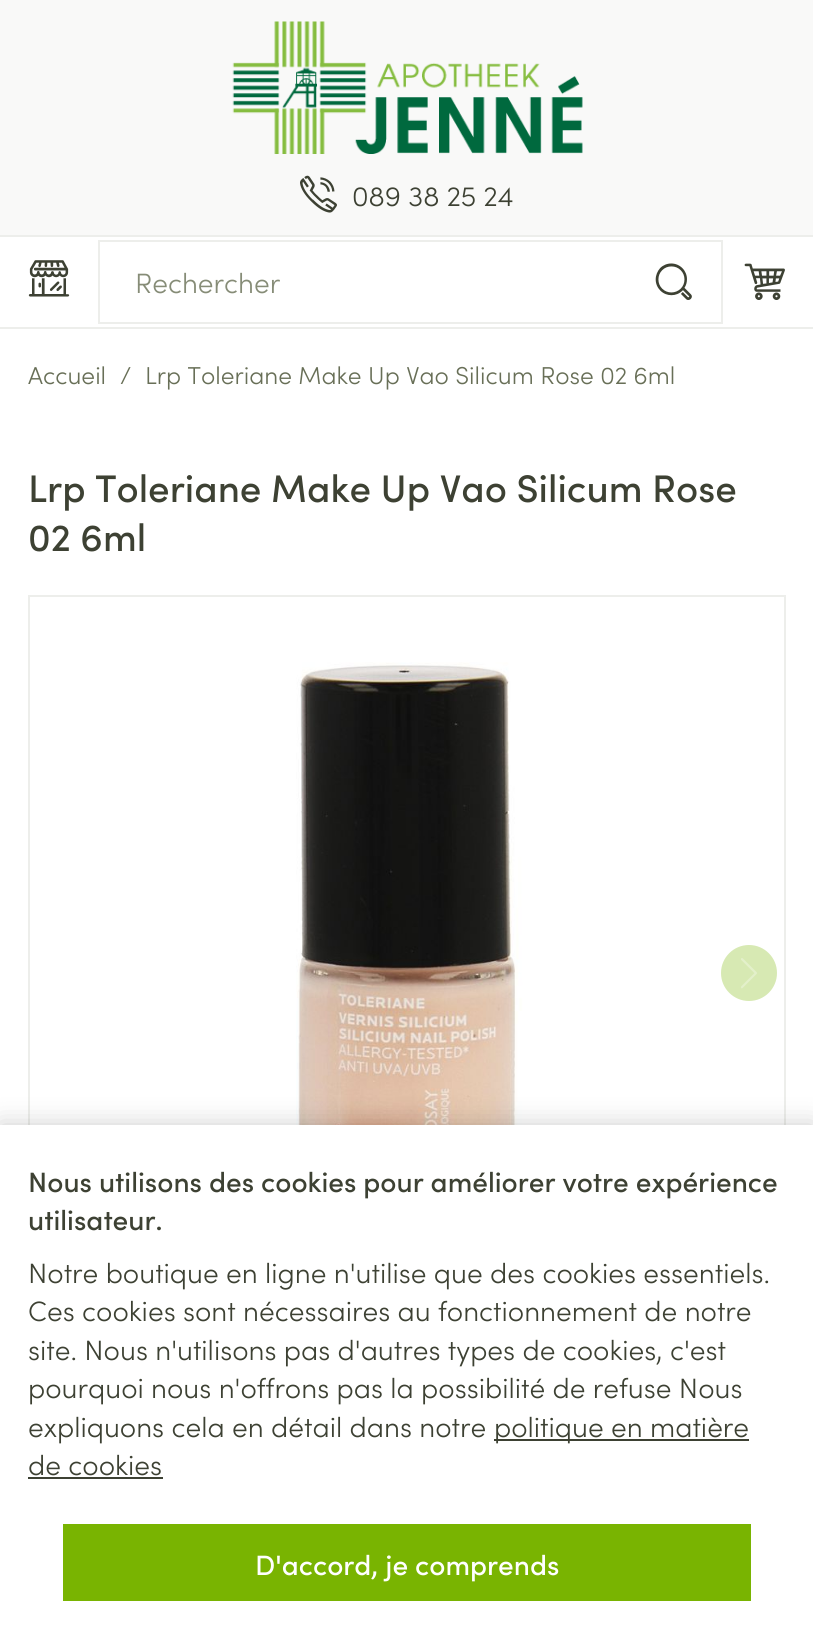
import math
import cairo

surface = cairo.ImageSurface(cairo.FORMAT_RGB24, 813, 1636)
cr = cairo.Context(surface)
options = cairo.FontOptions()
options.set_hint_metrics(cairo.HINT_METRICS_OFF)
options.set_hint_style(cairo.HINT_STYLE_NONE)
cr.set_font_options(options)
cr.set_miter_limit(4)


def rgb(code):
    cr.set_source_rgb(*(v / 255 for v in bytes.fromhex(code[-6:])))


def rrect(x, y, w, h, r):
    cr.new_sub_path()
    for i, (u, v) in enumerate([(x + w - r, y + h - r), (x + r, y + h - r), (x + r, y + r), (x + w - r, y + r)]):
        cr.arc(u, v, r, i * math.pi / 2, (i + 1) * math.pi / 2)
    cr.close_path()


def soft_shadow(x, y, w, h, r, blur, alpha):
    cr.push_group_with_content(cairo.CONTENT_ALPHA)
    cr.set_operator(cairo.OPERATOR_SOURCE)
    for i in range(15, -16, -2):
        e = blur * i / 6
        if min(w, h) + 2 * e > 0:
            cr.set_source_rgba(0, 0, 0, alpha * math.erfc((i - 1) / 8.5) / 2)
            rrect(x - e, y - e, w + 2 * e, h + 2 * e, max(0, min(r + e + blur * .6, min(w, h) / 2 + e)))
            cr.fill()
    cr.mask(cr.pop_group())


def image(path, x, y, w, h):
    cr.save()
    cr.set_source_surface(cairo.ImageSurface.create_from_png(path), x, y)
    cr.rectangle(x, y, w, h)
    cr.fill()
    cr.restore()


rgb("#ffffff")
cr.paint()
rgb("#f9f9f8")
cr.rectangle(0, 0, 813, 235)
cr.fill()
image("img/1.png", 232, 21, 351, 133)
image("img/2.png", 300, 175, 37, 38)
rgb("#edeeeb")
cr.rectangle(0, 235, 813, 2)
cr.fill()
cr.rectangle(0, 327, 813, 2)
cr.fill()
image("img/3.png", 28, 260, 42, 37)
cr.rectangle(99, 241, 623, 82)
cr.stroke()
image("img/4.png", 655, 263, 37, 37)
image("img/5.png", 744, 263, 41, 37)
cr.rectangle(29, 596, 756, 756)
cr.stroke()
image("img/6.png", 296, 662, 471, 463)
rgb("#d7e9b3")
cr.arc(749, 973, 27, 0, 2 * math.pi)
cr.fill_preserve()
cr.stroke()
image("img/7.png", 741, 958, 16, 31)
rgb("#000000")
soft_shadow(0, 1125, 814, 511, 0, 13, 0.2)
for x, y, w, h, color in [
    (0, 1125, 813, 511, "#ffffff"),
    (494, 1439, 255, 2, "#3d4133"),
    (28, 1477, 135, 2, "#3d4133"),
    (63, 1524, 688, 77, "#79b401"),
]:
    rgb(color)
    cr.rectangle(x, y, w, h)
    cr.fill()
cr.select_font_face("Sofia Light")
cr.set_font_size(28)
rgb("#3d4133")
cr.move_to(352, 206)
cr.show_text("089 38 25 24")
rgb("#868c77")
cr.move_to(135, 293)
cr.show_text("Rechercher")
cr.set_font_size(24.5)
rgb("#686f57")
for x, y, s in [
    (28, 384, "Accueil"),
    (120, 384, "/"),
    (145, 384, "Lrp Toleriane Make Up Vao Silicum Rose 02 6ml"),
]:
    cr.move_to(x, y)
    cr.show_text(s)
cr.select_font_face("Sofia Medium")
cr.set_font_size(38.5)
rgb("#3d4133")
cr.move_to(28, 502)
cr.show_text("Lrp Toleriane Make Up Vao Silicum Rose")
cr.move_to(28, 551)
cr.show_text("02 6ml")
cr.set_font_size(28)
cr.move_to(28, 1192)
cr.show_text("Nous utilisons des cookies pour améliorer votre expérience")
cr.move_to(28, 1230)
cr.show_text("utilisateur.")
cr.select_font_face("Sofia Light")
for x, y, s in [
    (28, 1283, "Notre boutique en ligne n'utilise que des cookies essentiels."),
    (28, 1321, "Ces cookies sont nécessaires au fonctionnement de notre"),
    (28, 1360, "site. Nous n'utilisons pas d'autres types de cookies, c'est"),
    (28, 1398, "pourquoi nous n'offrons pas la possibilité de refuse Nous"),
    (28, 1437, "expliquons cela en détail dans notre"),
    (494, 1437, "politique en matière"),
    (28, 1475, "de cookies"),
]:
    cr.move_to(x, y)
    cr.show_text(s)
cr.select_font_face("Sofia Medium")
rgb("#ffffff")
cr.move_to(255, 1575)
cr.show_text("D'accord, je comprends")
surface.write_to_png("page.png")
